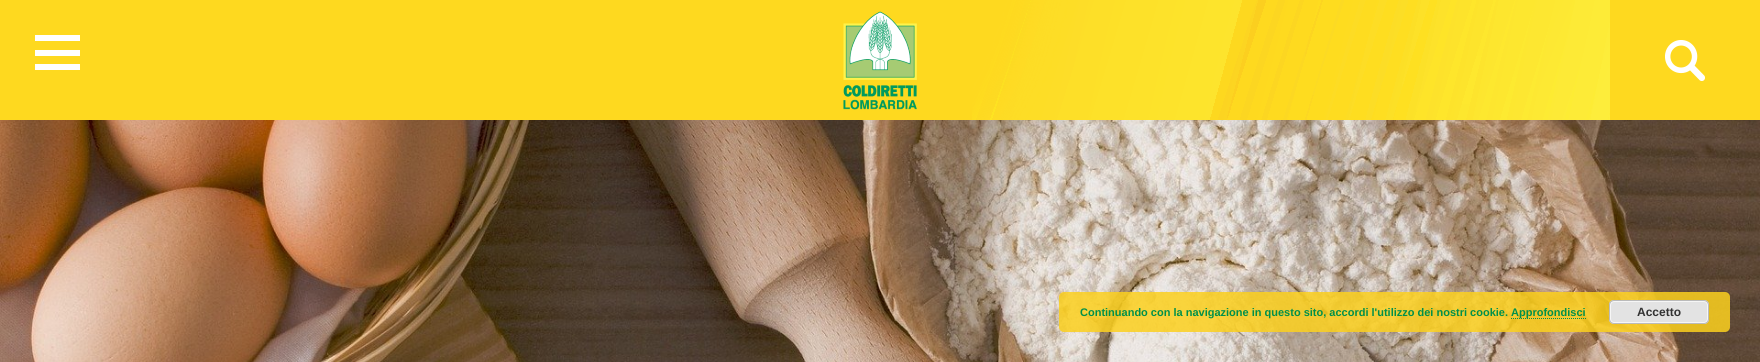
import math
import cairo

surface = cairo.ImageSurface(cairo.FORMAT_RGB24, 1760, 362)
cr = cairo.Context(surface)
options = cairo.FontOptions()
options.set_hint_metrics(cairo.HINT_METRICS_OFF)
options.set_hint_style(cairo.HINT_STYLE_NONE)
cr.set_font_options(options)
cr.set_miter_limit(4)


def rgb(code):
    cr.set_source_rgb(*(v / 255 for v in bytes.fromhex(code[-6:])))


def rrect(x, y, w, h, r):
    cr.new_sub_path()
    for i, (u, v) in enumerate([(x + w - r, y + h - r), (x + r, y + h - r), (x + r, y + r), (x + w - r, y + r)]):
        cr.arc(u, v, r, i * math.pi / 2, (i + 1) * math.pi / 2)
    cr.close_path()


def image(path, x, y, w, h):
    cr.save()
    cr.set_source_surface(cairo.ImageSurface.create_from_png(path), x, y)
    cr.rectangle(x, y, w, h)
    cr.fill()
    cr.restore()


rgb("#ffffff")
cr.paint()
rgb("#fed91f")
cr.rectangle(0, 0, 1074, 120)
cr.fill()
image("img/1.png", 972, 0, 638, 120)
for x, y, w, h, color in [
    (35, 35, 45, 6, "#ffffff"),
    (35, 50, 45, 6, "#ffffff"),
    (35, 64, 45, 6, "#ffffff"),
]:
    rgb(color)
    cr.rectangle(x, y, w, h)
    cr.fill()
image("img/2.png", 843, 11, 74, 99)
rgb("#fed91f")
cr.rectangle(1610, 0, 150, 120)
cr.fill()
image("img/3.png", 1665, 40, 40, 41)
image("img/4.png", 0, 120, 1760, 242)
cr.set_source_rgba(0.984, 0.816, 0.122, 0.85)
rrect(1059, 292, 671, 40, 5)
cr.fill()
cr.new_path()
cr.move_to(1511, 318.5)
cr.line_to(1586, 318.5)
rgb("#00904a")
cr.set_line_width(1)
cr.set_dash([1, 1])
cr.stroke()
rgb("#e3e3e3")
rrect(1609, 300, 100, 24, 5)
cr.fill()
rrect(1610.5, 301.5, 97, 21, 3.5)
rgb("#f6f6f6")
cr.set_dash([])
cr.stroke()
rrect(1609.5, 300.5, 99, 23, 4.5)
rgb("#bbbbbb")
cr.stroke()
cr.select_font_face("Liberation Sans", cairo.FONT_SLANT_NORMAL, cairo.FONT_WEIGHT_BOLD)
cr.set_font_size(11)
rgb("#00904a")
cr.move_to(1080, 316)
cr.show_text("Continuando con la navigazione in questo sito, accordi l'utilizzo dei nostri cookie.")
cr.move_to(1511, 316)
cr.show_text("Approfondisci")
cr.set_font_size(12)
rgb("#333333")
cr.move_to(1637, 316)
cr.show_text("Accetto")
surface.write_to_png("page.png")
